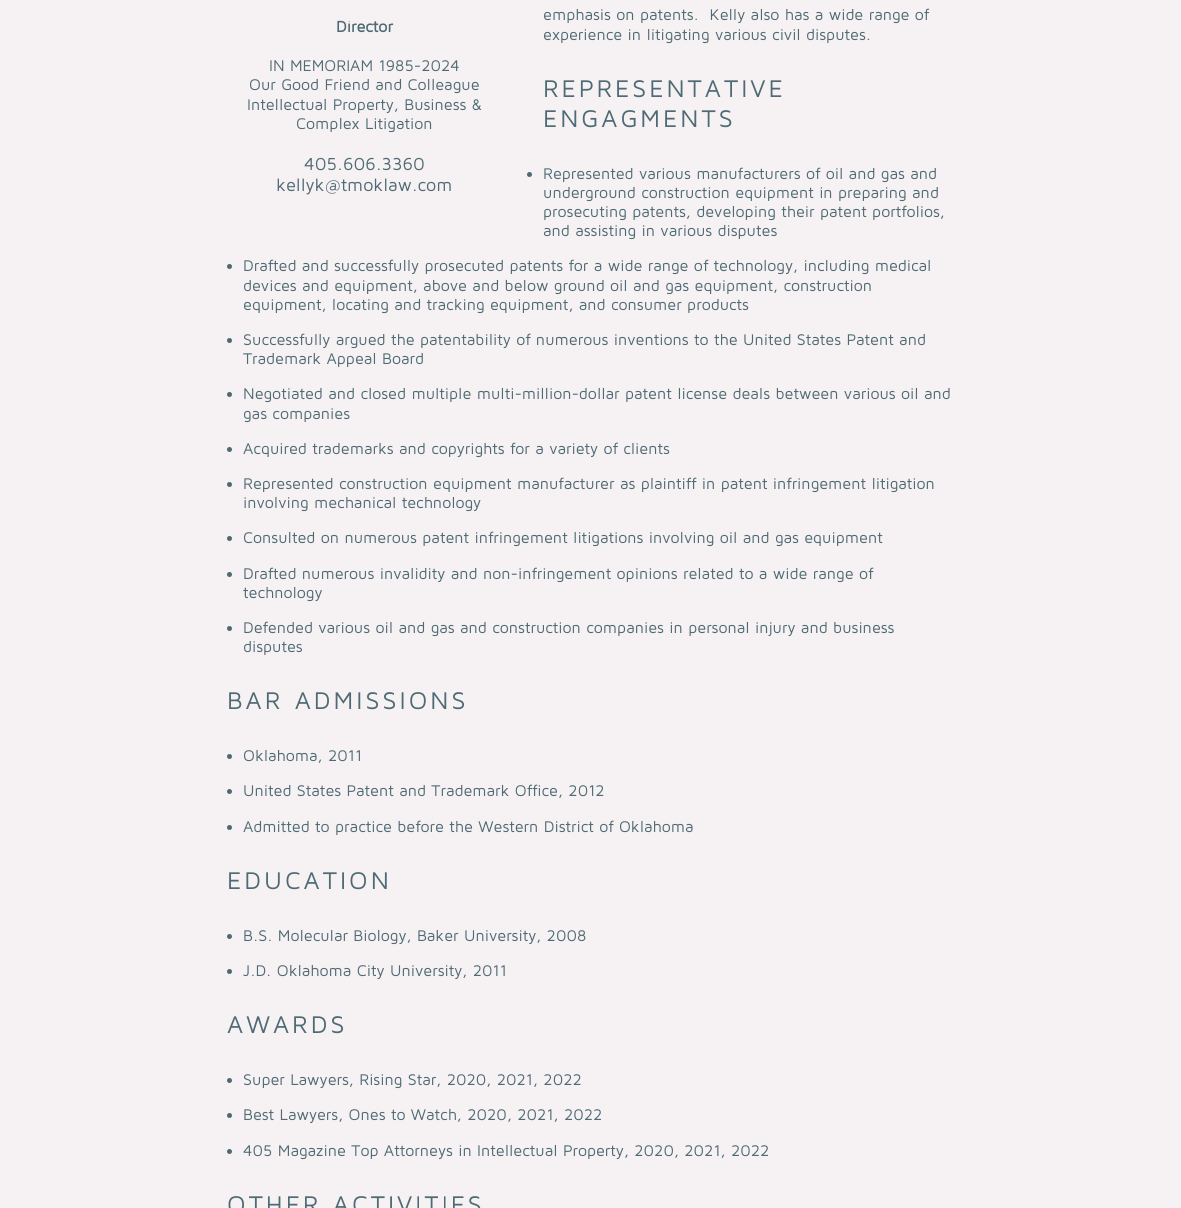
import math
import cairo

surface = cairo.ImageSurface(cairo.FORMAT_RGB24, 1181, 1208)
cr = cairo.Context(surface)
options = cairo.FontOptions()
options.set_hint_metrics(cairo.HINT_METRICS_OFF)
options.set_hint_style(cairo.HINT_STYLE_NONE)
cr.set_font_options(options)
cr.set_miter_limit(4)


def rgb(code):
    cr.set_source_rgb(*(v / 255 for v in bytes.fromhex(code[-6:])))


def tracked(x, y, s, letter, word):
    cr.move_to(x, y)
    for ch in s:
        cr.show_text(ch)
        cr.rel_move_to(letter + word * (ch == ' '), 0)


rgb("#f6f1f2")
cr.paint()
rgb("#4e6a74")
cr.arc(529.5, 174.5, 2.5, 0, 2 * math.pi)
cr.fill()
cr.arc(229.5, 266.5, 2.5, 0, 2 * math.pi)
cr.fill()
cr.arc(229.5, 340.5, 2.5, 0, 2 * math.pi)
cr.fill()
cr.arc(229.5, 394.5, 2.5, 0, 2 * math.pi)
cr.fill()
cr.arc(229.5, 449.5, 2.5, 0, 2 * math.pi)
cr.fill()
cr.arc(229.5, 484.5, 2.5, 0, 2 * math.pi)
cr.fill()
cr.arc(229.5, 538.5, 2.5, 0, 2 * math.pi)
cr.fill()
cr.arc(229.5, 574.5, 2.5, 0, 2 * math.pi)
cr.fill()
cr.arc(229.5, 628.5, 2.5, 0, 2 * math.pi)
cr.fill()
cr.arc(229.5, 756.5, 2.5, 0, 2 * math.pi)
cr.fill()
cr.arc(229.5, 791.5, 2.5, 0, 2 * math.pi)
cr.fill()
cr.arc(229.5, 827.5, 2.5, 0, 2 * math.pi)
cr.fill()
cr.arc(229.5, 936.5, 2.5, 0, 2 * math.pi)
cr.fill()
cr.arc(229.5, 971.5, 2.5, 0, 2 * math.pi)
cr.fill()
cr.arc(229.5, 1080.5, 2.5, 0, 2 * math.pi)
cr.fill()
cr.arc(229.5, 1115.5, 2.5, 0, 2 * math.pi)
cr.fill()
cr.arc(229.5, 1151.5, 2.5, 0, 2 * math.pi)
cr.fill()
cr.select_font_face("Maven Pro")
cr.set_font_size(16)
cr.move_to(543, 20)
cr.show_text("emphasis on patents.  Kelly also has a wide range of")
cr.move_to(543, 40)
cr.show_text("experience in litigating various civil disputes.")
cr.set_font_size(25)
tracked(543, 97, "REPRESENTATIVE", 3, 0)
tracked(543, 127, "ENGAGMENTS", 3, 0)
cr.set_font_size(16)
for x, y, s in [
    (543, 179, "Represented various manufacturers of oil and gas and"),
    (543, 198, "underground construction equipment in preparing and"),
    (543, 217, "prosecuting patents, developing their patent portfolios,"),
    (543, 236, "and assisting in various disputes"),
    (243, 271, "Drafted and successfully prosecuted patents for a wide range of technology, including medical"),
    (243, 291, "devices and equipment, above and below ground oil and gas equipment, construction"),
    (243, 310, "equipment, locating and tracking equipment, and consumer products"),
    (243, 345, "Successfully argued the patentability of numerous inventions to the United States Patent and"),
    (243, 364, "Trademark Appeal Board"),
    (243, 399, "Negotiated and closed multiple multi-million-dollar patent license deals between various oil and"),
    (243, 419, "gas companies"),
    (243, 454, "Acquired trademarks and copyrights for a variety of clients"),
    (243, 489, "Represented construction equipment manufacturer as plaintiff in patent infringement litigation"),
    (243, 508, "involving mechanical technology"),
    (243, 543, "Consulted on numerous patent infringement litigations involving oil and gas equipment"),
    (243, 579, "Drafted numerous invalidity and non-infringement opinions related to a wide range of"),
    (243, 598, "technology"),
    (243, 633, "Defended various oil and gas and construction companies in personal injury and business"),
    (243, 652, "disputes"),
]:
    cr.move_to(x, y)
    cr.show_text(s)
cr.set_font_size(25)
tracked(227, 709, "BAR ADMISSIONS", 3, 0)
cr.set_font_size(16)
for x, y, s in [
    (243, 761, "Oklahoma, 2011"),
    (243, 796, "United States Patent and Trademark Office, 2012"),
    (243, 832, "Admitted to practice before the Western District of Oklahoma"),
]:
    cr.move_to(x, y)
    cr.show_text(s)
cr.set_font_size(25)
tracked(227, 889, "EDUCATION", 3, 0)
cr.set_font_size(16)
cr.move_to(243, 941)
cr.show_text("B.S. Molecular Biology, Baker University, 2008")
cr.move_to(243, 976)
cr.show_text("J.D. Oklahoma City University, 2011")
cr.set_font_size(25)
tracked(227, 1033, "AWARDS", 3, 0)
cr.set_font_size(16)
for x, y, s in [
    (243, 1085, "Super Lawyers, Rising Star, 2020, 2021, 2022"),
    (243, 1120, "Best Lawyers, Ones to Watch, 2020, 2021, 2022"),
    (243, 1156, "405 Magazine Top Attorneys in Intellectual Property, 2020, 2021, 2022"),
]:
    cr.move_to(x, y)
    cr.show_text(s)
cr.set_font_size(25)
tracked(227, 1213, "OTHER ACTIVITIES", 3, 0)
cr.select_font_face("Maven Pro", cairo.FONT_SLANT_NORMAL, cairo.FONT_WEIGHT_BOLD)
cr.set_font_size(16)
cr.move_to(336, 32)
cr.show_text("Director")
cr.select_font_face("Maven Pro")
for x, y, s in [
    (269, 71, "IN MEMORIAM 1985-2024"),
    (249, 90, "Our Good Friend and Colleague"),
    (247, 110, "Intellectual Property, Business &"),
    (296, 129, "Complex Litigation"),
]:
    cr.move_to(x, y)
    cr.show_text(s)
cr.set_font_size(18)
cr.move_to(304, 170)
cr.show_text("405.606.3360")
cr.move_to(276, 191)
cr.show_text("kellyk@tmoklaw.com")
surface.write_to_png("page.png")
